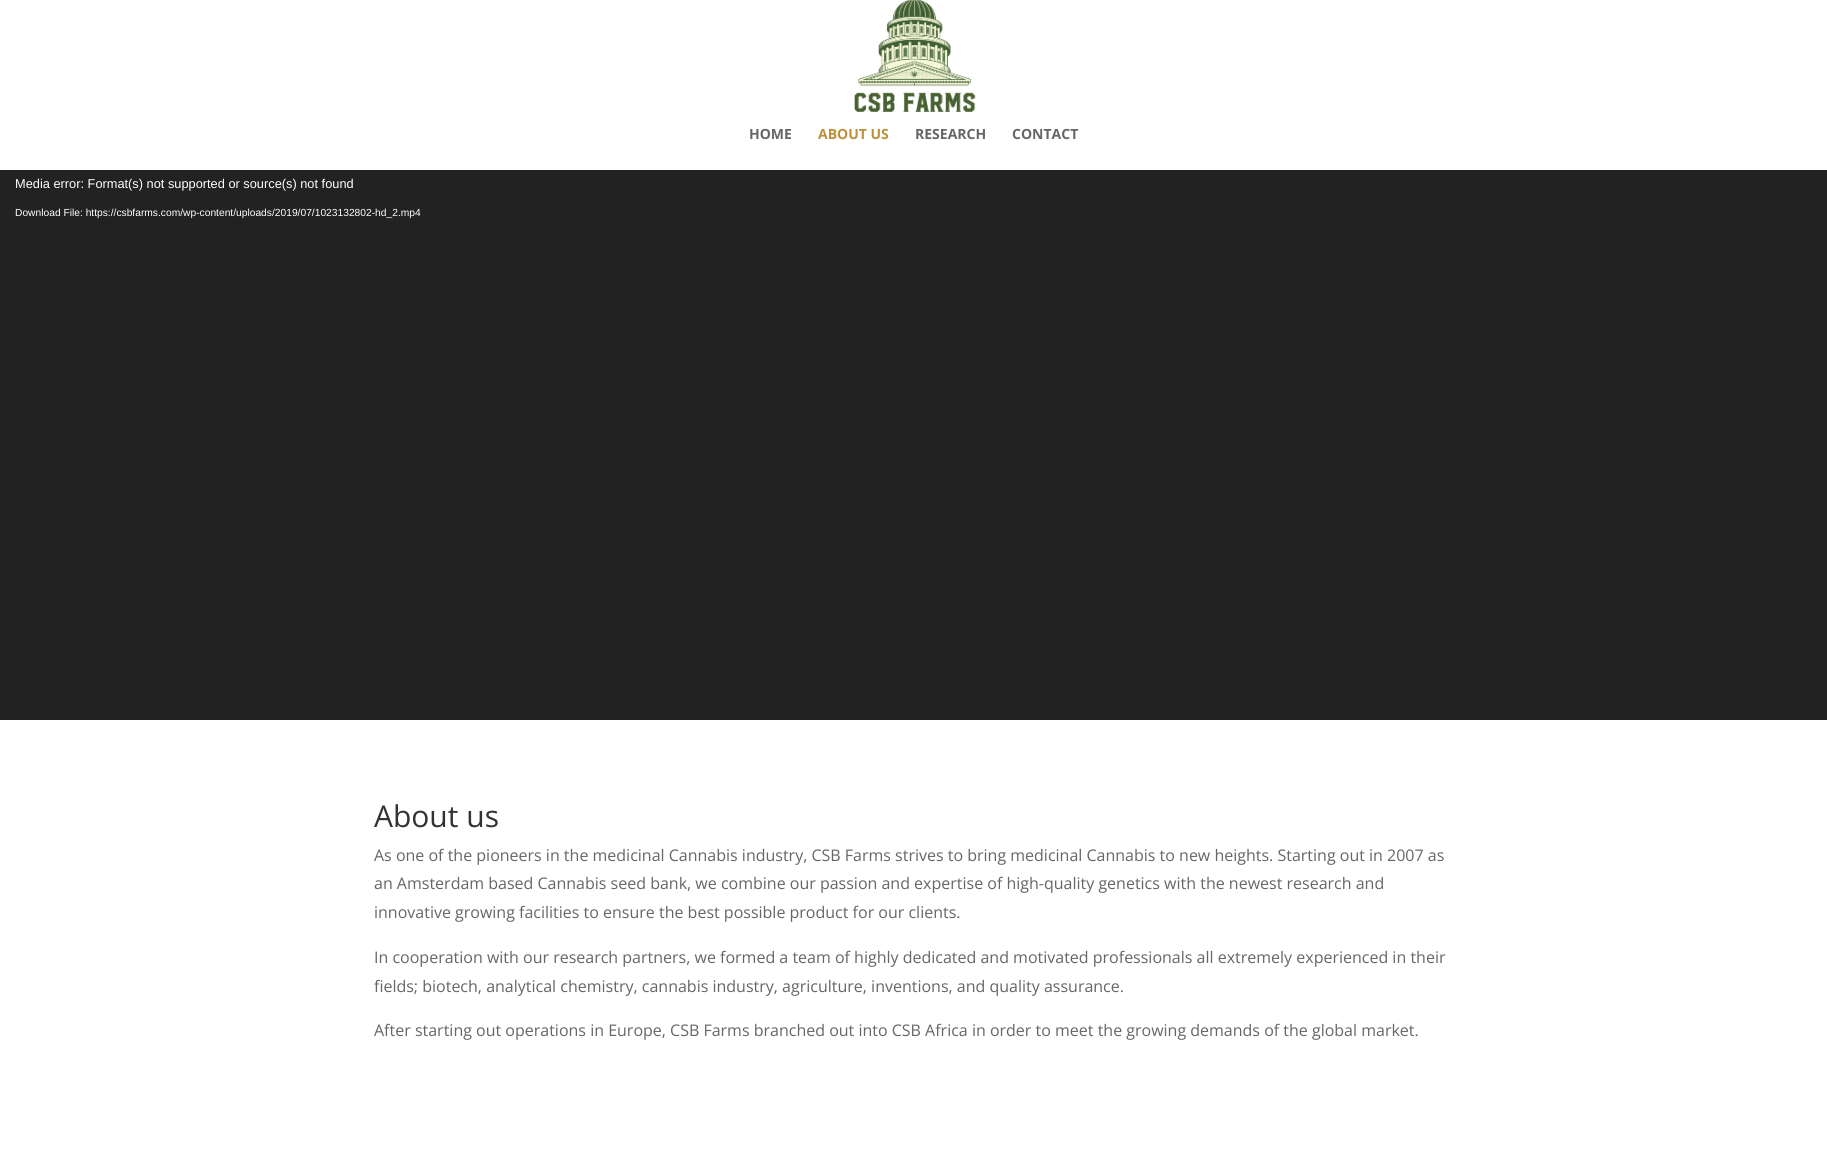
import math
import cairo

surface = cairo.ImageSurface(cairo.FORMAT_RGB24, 1827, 1167)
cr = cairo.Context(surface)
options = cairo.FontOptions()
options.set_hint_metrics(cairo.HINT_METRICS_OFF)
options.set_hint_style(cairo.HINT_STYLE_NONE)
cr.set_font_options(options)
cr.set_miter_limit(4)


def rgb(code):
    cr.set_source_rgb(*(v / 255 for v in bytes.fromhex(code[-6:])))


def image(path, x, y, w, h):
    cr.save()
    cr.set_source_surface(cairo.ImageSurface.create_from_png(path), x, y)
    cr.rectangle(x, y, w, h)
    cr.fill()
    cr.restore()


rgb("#ffffff")
cr.paint()
rgb("#1f1f1f")
cr.rectangle(0, 170, 1827, 1)
cr.fill()
image("img/1.png", 854, 0, 122, 112)
rgb("#222222")
cr.rectangle(0, 171, 1827, 549)
cr.fill()
cr.select_font_face("Open Sans", cairo.FONT_SLANT_NORMAL, cairo.FONT_WEIGHT_BOLD)
cr.set_font_size(14)
rgb("#666666")
cr.move_to(749, 139)
cr.show_text("HOME")
rgb("#bc8f3b")
cr.move_to(818, 139)
cr.show_text("ABOUT US")
rgb("#666666")
cr.move_to(915, 139)
cr.show_text("RESEARCH")
cr.move_to(1012, 139)
cr.show_text("CONTACT")
cr.select_font_face("Liberation Sans")
cr.set_font_size(12.8)
rgb("#ffffff")
cr.move_to(15, 188)
cr.show_text("Media error: Format(s) not supported or source(s) not found")
cr.set_font_size(10.25)
cr.move_to(15, 216)
cr.show_text("Download File: https://csbfarms.com/wp-content/uploads/2019/07/1023132802-hd_2.mp4")
cr.select_font_face("Open Sans")
cr.set_font_size(30)
rgb("#333333")
cr.move_to(374, 827)
cr.show_text("About us")
cr.set_font_size(16)
rgb("#666666")
for x, y, s in [
    (374, 861, "As one of the pioneers in the medicinal Cannabis industry, CSB Farms strives to bring medicinal Cannabis to new heights. Starting out in 2007 as"),
    (374, 889, "an Amsterdam based Cannabis seed bank, we combine our passion and expertise of high-quality genetics with the newest research and"),
    (374, 918, "innovative growing facilities to ensure the best possible product for our clients."),
    (374, 963, "In cooperation with our research partners, we formed a team of highly dedicated and motivated professionals all extremely experienced in their"),
    (374, 992, "fields; biotech, analytical chemistry, cannabis industry, agriculture, inventions, and quality assurance."),
    (374, 1036, "After starting out operations in Europe, CSB Farms branched out into CSB Africa in order to meet the growing demands of the global market."),
]:
    cr.move_to(x, y)
    cr.show_text(s)
surface.write_to_png("page.png")
